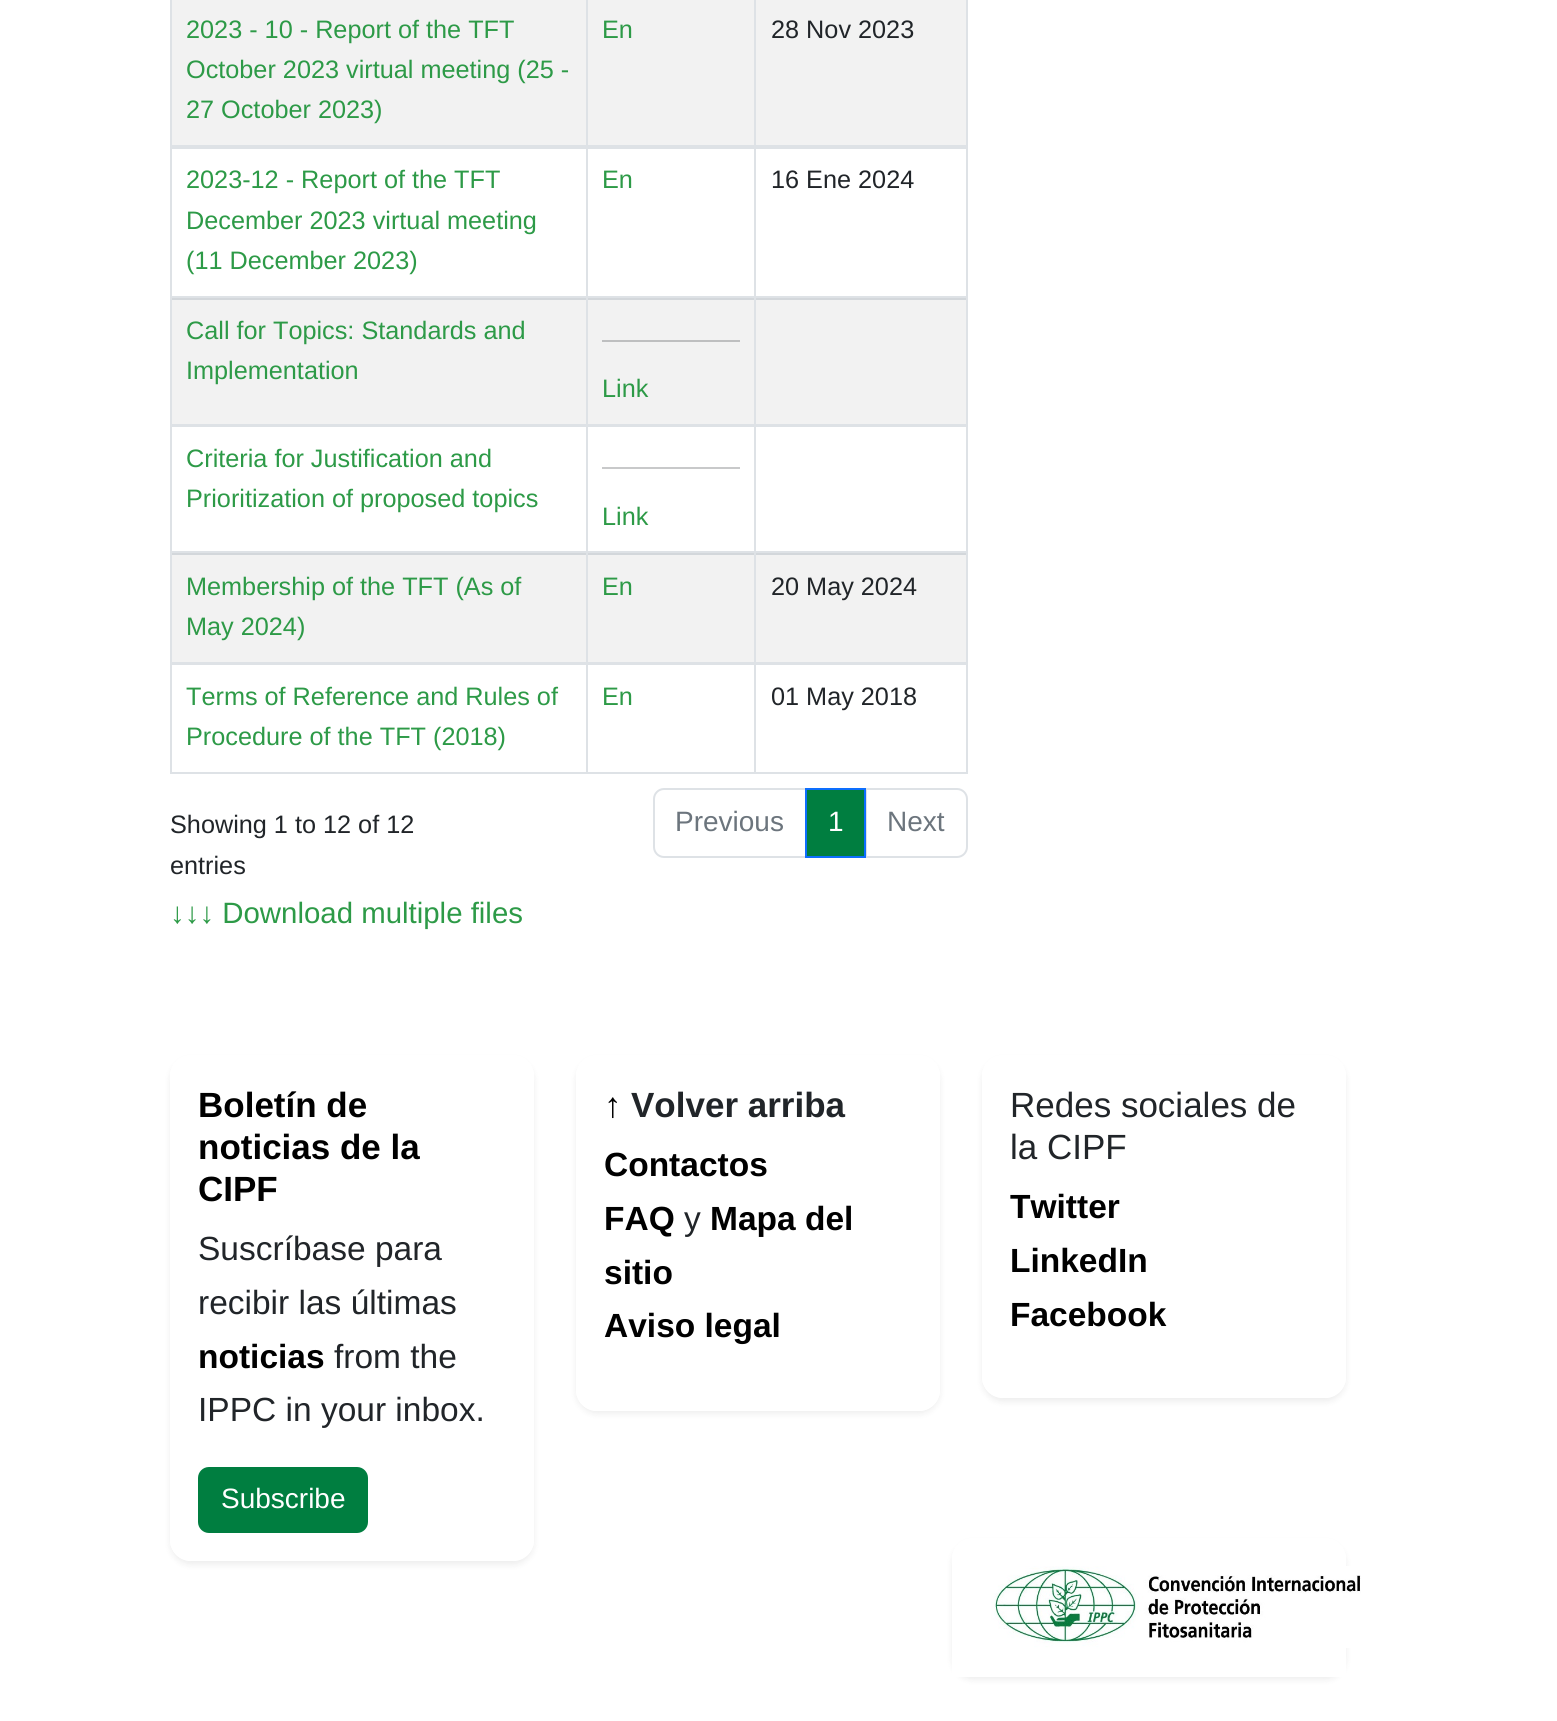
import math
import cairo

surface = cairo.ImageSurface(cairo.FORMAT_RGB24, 1557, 1721)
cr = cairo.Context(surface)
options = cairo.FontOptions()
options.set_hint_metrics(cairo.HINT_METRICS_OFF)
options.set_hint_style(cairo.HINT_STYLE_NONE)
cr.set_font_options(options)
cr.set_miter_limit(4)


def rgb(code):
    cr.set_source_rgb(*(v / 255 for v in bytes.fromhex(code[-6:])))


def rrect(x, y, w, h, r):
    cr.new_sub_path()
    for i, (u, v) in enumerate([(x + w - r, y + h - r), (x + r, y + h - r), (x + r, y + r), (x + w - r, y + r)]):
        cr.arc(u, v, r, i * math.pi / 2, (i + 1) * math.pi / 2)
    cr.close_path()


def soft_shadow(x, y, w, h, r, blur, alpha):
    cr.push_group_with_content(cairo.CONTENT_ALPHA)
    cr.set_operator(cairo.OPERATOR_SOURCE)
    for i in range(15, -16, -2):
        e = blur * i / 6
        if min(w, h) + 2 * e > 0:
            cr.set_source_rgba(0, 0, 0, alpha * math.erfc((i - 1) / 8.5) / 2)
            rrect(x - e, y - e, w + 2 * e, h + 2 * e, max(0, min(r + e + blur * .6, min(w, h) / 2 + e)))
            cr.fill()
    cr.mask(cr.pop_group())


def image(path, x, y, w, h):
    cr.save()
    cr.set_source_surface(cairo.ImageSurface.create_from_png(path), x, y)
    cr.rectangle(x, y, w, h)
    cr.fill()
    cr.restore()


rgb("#ffffff")
cr.paint()
for x, y, w, h, color in [
    (756, 555, 210, 107, "#f2f2f2"),
    (588, 555, 166, 107, "#f2f2f2"),
    (172, 555, 414, 107, "#f2f2f2"),
    (756, 300, 210, 124, "#f2f2f2"),
    (588, 300, 166, 124, "#f2f2f2"),
    (172, 300, 414, 124, "#f2f2f2"),
    (170, 145, 798, 4, "#dee2e6"),
    (172, 0, 414, 145, "#f2f2f2"),
    (586, 0, 2, 147, "#dee2e6"),
    (170, 0, 2, 147, "#dee2e6"),
    (588, 0, 166, 145, "#f2f2f2"),
    (754, 0, 2, 147, "#dee2e6"),
    (756, 0, 210, 145, "#f2f2f2"),
    (966, 0, 2, 147, "#dee2e6"),
    (170, 296, 798, 2, "#dee2e6"),
    (586, 147, 2, 151, "#dee2e6"),
    (170, 147, 2, 151, "#dee2e6"),
    (754, 147, 2, 151, "#dee2e6"),
    (966, 147, 2, 151, "#dee2e6"),
    (756, 298, 210, 2, "#d3d7db"),
    (588, 298, 166, 2, "#d3d7db"),
    (172, 298, 414, 2, "#d3d7db"),
    (170, 424, 798, 3, "#dee2e6"),
    (586, 298, 2, 127, "#dee2e6"),
    (170, 298, 2, 127, "#dee2e6"),
    (966, 298, 2, 127, "#dee2e6"),
    (754, 298, 2, 127, "#dee2e6"),
    (602, 340, 138, 2, "#bebfc0"),
    (170, 551, 798, 2, "#dee2e6"),
    (586, 425, 2, 128, "#dee2e6"),
    (170, 425, 2, 128, "#dee2e6"),
    (966, 425, 2, 128, "#dee2e6"),
    (754, 425, 2, 128, "#dee2e6"),
    (602, 467, 138, 2, "#c8c9ca"),
    (756, 553, 210, 2, "#d3d7db"),
    (588, 553, 166, 2, "#d3d7db"),
    (172, 553, 414, 2, "#d3d7db"),
    (170, 662, 798, 3, "#dee2e6"),
    (586, 553, 2, 110, "#dee2e6"),
    (170, 553, 2, 110, "#dee2e6"),
    (754, 553, 2, 110, "#dee2e6"),
    (966, 553, 2, 110, "#dee2e6"),
    (170, 772, 798, 2, "#dee2e6"),
    (586, 663, 2, 111, "#dee2e6"),
    (170, 663, 2, 111, "#dee2e6"),
    (754, 663, 2, 111, "#dee2e6"),
    (966, 663, 2, 111, "#dee2e6"),
]:
    rgb(color)
    cr.rectangle(x, y, w, h)
    cr.fill()
cr.new_path()
cr.move_to(664, 789)
cr.line_to(806, 789)
cr.line_to(806, 857)
cr.line_to(664, 857)
cr.curve_to(658.5, 857, 654, 852.5, 654, 847)
cr.line_to(654, 799)
cr.curve_to(654, 793.5, 658.5, 789, 664, 789)
cr.close_path()
cr.stroke()
cr.new_path()
cr.move_to(866, 789)
cr.line_to(957, 789)
cr.curve_to(962.5, 789, 967, 793.5, 967, 799)
cr.line_to(967, 847)
cr.curve_to(967, 852.5, 962.5, 857, 957, 857)
cr.line_to(866, 857)
cr.close_path()
cr.stroke()
rgb("#007e40")
cr.rectangle(806, 789, 59, 68)
cr.fill_preserve()
rgb("#0d6efd")
cr.stroke()
cr.save()
cr.set_fill_rule(cairo.FILL_RULE_EVEN_ODD)
cr.new_path()
cr.move_to(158, 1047)
cr.line_to(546, 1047)
cr.line_to(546, 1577)
cr.line_to(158, 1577)
cr.close_path()
cr.move_to(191, 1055)
cr.line_to(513, 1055)
cr.curve_to(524.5, 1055, 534, 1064.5, 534, 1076)
cr.line_to(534, 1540)
cr.curve_to(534, 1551.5, 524.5, 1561, 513, 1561)
cr.line_to(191, 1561)
cr.curve_to(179.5, 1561, 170, 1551.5, 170, 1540)
cr.line_to(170, 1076)
cr.curve_to(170, 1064.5, 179.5, 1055, 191, 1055)
cr.close_path()
cr.clip()
rgb("#000000")
soft_shadow(170, 1059, 364, 506, 21, 3.5, 0.07)
cr.restore()
cr.set_source_rgba(1, 1, 1, 0.75)
rrect(170, 1055, 364, 506, 21)
cr.fill()
rgb("#007e40")
rrect(199, 1468, 168, 64, 10)
cr.fill_preserve()
cr.stroke()
cr.save()
cr.set_fill_rule(cairo.FILL_RULE_EVEN_ODD)
cr.new_path()
cr.move_to(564, 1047)
cr.line_to(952, 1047)
cr.line_to(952, 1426)
cr.line_to(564, 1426)
cr.close_path()
cr.move_to(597, 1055)
cr.line_to(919, 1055)
cr.curve_to(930.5, 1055, 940, 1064.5, 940, 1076)
cr.line_to(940, 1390)
cr.curve_to(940, 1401.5, 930.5, 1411, 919, 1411)
cr.line_to(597, 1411)
cr.curve_to(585.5, 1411, 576, 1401.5, 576, 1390)
cr.line_to(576, 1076)
cr.curve_to(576, 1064.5, 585.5, 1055, 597, 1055)
cr.close_path()
cr.clip()
rgb("#000000")
soft_shadow(576, 1059, 364, 355, 21, 3.5, 0.07)
cr.restore()
cr.set_source_rgba(1, 1, 1, 0.75)
rrect(576, 1055, 364, 356, 21)
cr.fill()
cr.save()
cr.set_fill_rule(cairo.FILL_RULE_EVEN_ODD)
cr.new_path()
cr.move_to(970, 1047)
cr.line_to(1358, 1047)
cr.line_to(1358, 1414)
cr.line_to(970, 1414)
cr.close_path()
cr.move_to(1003, 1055)
cr.line_to(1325, 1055)
cr.curve_to(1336.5, 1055, 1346, 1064.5, 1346, 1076)
cr.line_to(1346, 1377)
cr.curve_to(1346, 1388.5, 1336.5, 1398, 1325, 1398)
cr.line_to(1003, 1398)
cr.curve_to(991.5, 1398, 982, 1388.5, 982, 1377)
cr.line_to(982, 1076)
cr.curve_to(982, 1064.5, 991.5, 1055, 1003, 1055)
cr.close_path()
cr.clip()
rgb("#000000")
soft_shadow(982, 1059, 364, 343, 21, 3.5, 0.07)
cr.restore()
rrect(982, 1055, 364, 343, 21)
cr.fill()
cr.save()
cr.set_fill_rule(cairo.FILL_RULE_EVEN_ODD)
cr.new_path()
cr.move_to(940, 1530)
cr.line_to(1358, 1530)
cr.line_to(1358, 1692)
cr.line_to(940, 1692)
cr.close_path()
cr.move_to(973, 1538)
cr.line_to(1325, 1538)
cr.curve_to(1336.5, 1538, 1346, 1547.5, 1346, 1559)
cr.line_to(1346, 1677)
cr.line_to(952, 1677)
cr.line_to(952, 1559)
cr.curve_to(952, 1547.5, 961.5, 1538, 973, 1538)
cr.close_path()
cr.clip()
rgb("#000000")
soft_shadow(952, 1542, 394, 138, 21, 3.5, 0.07)
cr.restore()
cr.new_path()
cr.move_to(973, 1538)
cr.line_to(1325, 1538)
cr.curve_to(1336.5, 1538, 1346, 1547.5, 1346, 1559)
cr.line_to(1346, 1677)
cr.line_to(952, 1677)
cr.line_to(952, 1559)
cr.curve_to(952, 1547.5, 961.5, 1538, 973, 1538)
cr.close_path()
cr.fill()
image("img/1.png", 991, 1566, 370, 82)
cr.select_font_face("Liberation Sans")
cr.set_font_size(25.25)
rgb("#2d9a47")
for x, y, s in [
    (186, 38, "2023 - 10 - Report of the TFT"),
    (186, 78, "October 2023 virtual meeting (25 -"),
    (186, 118, "27 October 2023)"),
    (602, 38, "En"),
]:
    cr.move_to(x, y)
    cr.show_text(s)
rgb("#212529")
cr.move_to(771, 38)
cr.show_text("28 Nov 2023")
rgb("#2d9a47")
for x, y, s in [
    (186, 188, "2023-12 - Report of the TFT"),
    (186, 229, "December 2023 virtual meeting"),
    (186, 269, "(11 December 2023)"),
    (602, 188, "En"),
]:
    cr.move_to(x, y)
    cr.show_text(s)
rgb("#212529")
cr.move_to(771, 188)
cr.show_text("16 Ene 2024")
rgb("#2d9a47")
for x, y, s in [
    (186, 339, "Call for Topics: Standards and"),
    (186, 379, "Implementation"),
    (602, 397, "Link"),
    (186, 467, "Criteria for Justification and"),
    (186, 507, "Prioritization of proposed topics"),
    (602, 525, "Link"),
    (186, 595, "Membership of the TFT (As of"),
    (186, 635, "May 2024)"),
    (602, 595, "En"),
]:
    cr.move_to(x, y)
    cr.show_text(s)
rgb("#212529")
cr.move_to(771, 595)
cr.show_text("20 May 2024")
rgb("#2d9a47")
for x, y, s in [
    (186, 705, "Terms of Reference and Rules of"),
    (186, 745, "Procedure of the TFT (2018)"),
    (602, 705, "En"),
]:
    cr.move_to(x, y)
    cr.show_text(s)
rgb("#212529")
for x, y, s in [
    (771, 705, "01 May 2018"),
    (170, 833, "Showing 1 to 12 of 12"),
    (170, 874, "entries"),
]:
    cr.move_to(x, y)
    cr.show_text(s)
cr.set_font_size(28)
rgb("#6c757d")
cr.move_to(675, 831)
cr.show_text("Previous")
rgb("#ffffff")
cr.move_to(828, 831)
cr.show_text("1")
rgb("#6c757d")
cr.move_to(887, 831)
cr.show_text("Next")
cr.set_font_size(29.4)
rgb("#2d9a47")
cr.move_to(170, 923)
cr.show_text("↓↓↓ Download multiple files")
cr.select_font_face("Liberation Sans", cairo.FONT_SLANT_NORMAL, cairo.FONT_WEIGHT_BOLD)
cr.set_font_size(35)
rgb("#000000")
for x, y, s in [
    (198, 1117, "Boletín de"),
    (198, 1159, "noticias de la"),
    (198, 1201, "CIPF"),
]:
    cr.move_to(x, y)
    cr.show_text(s)
cr.select_font_face("Liberation Sans")
cr.set_font_size(33.5)
rgb("#212529")
cr.move_to(198, 1260)
cr.show_text("Suscríbase para")
cr.move_to(198, 1314)
cr.show_text("recibir las últimas")
cr.select_font_face("Liberation Sans", cairo.FONT_SLANT_NORMAL, cairo.FONT_WEIGHT_BOLD)
rgb("#000000")
cr.move_to(198, 1368)
cr.show_text("noticias")
cr.select_font_face("Liberation Sans")
rgb("#212529")
cr.move_to(334, 1368)
cr.show_text("from the")
cr.move_to(198, 1421)
cr.show_text("IPPC in your inbox.")
cr.set_font_size(28)
rgb("#ffffff")
cr.move_to(221, 1508)
cr.show_text("Subscribe")
cr.select_font_face("Liberation Sans", cairo.FONT_SLANT_NORMAL, cairo.FONT_WEIGHT_BOLD)
cr.set_font_size(35)
rgb("#000000")
cr.move_to(604, 1117)
cr.show_text("↑")
rgb("#212529")
cr.move_to(631, 1117)
cr.show_text("Volver arriba")
cr.set_font_size(33.5)
rgb("#000000")
cr.move_to(604, 1176)
cr.show_text("Contactos")
cr.move_to(604, 1230)
cr.show_text("FAQ")
cr.select_font_face("Liberation Sans")
rgb("#212529")
cr.move_to(684, 1230)
cr.show_text("y")
cr.select_font_face("Liberation Sans", cairo.FONT_SLANT_NORMAL, cairo.FONT_WEIGHT_BOLD)
rgb("#000000")
for x, y, s in [
    (710, 1230, "Mapa del"),
    (604, 1284, "sitio"),
    (604, 1337, "Aviso legal"),
]:
    cr.move_to(x, y)
    cr.show_text(s)
cr.select_font_face("Liberation Sans")
cr.set_font_size(35)
rgb("#212529")
cr.move_to(1010, 1117)
cr.show_text("Redes sociales de")
cr.move_to(1010, 1159)
cr.show_text("la CIPF")
cr.select_font_face("Liberation Sans", cairo.FONT_SLANT_NORMAL, cairo.FONT_WEIGHT_BOLD)
cr.set_font_size(33.5)
rgb("#000000")
for x, y, s in [
    (1010, 1218, "Twitter"),
    (1010, 1272, "LinkedIn"),
    (1010, 1326, "Facebook"),
]:
    cr.move_to(x, y)
    cr.show_text(s)
surface.write_to_png("page.png")
